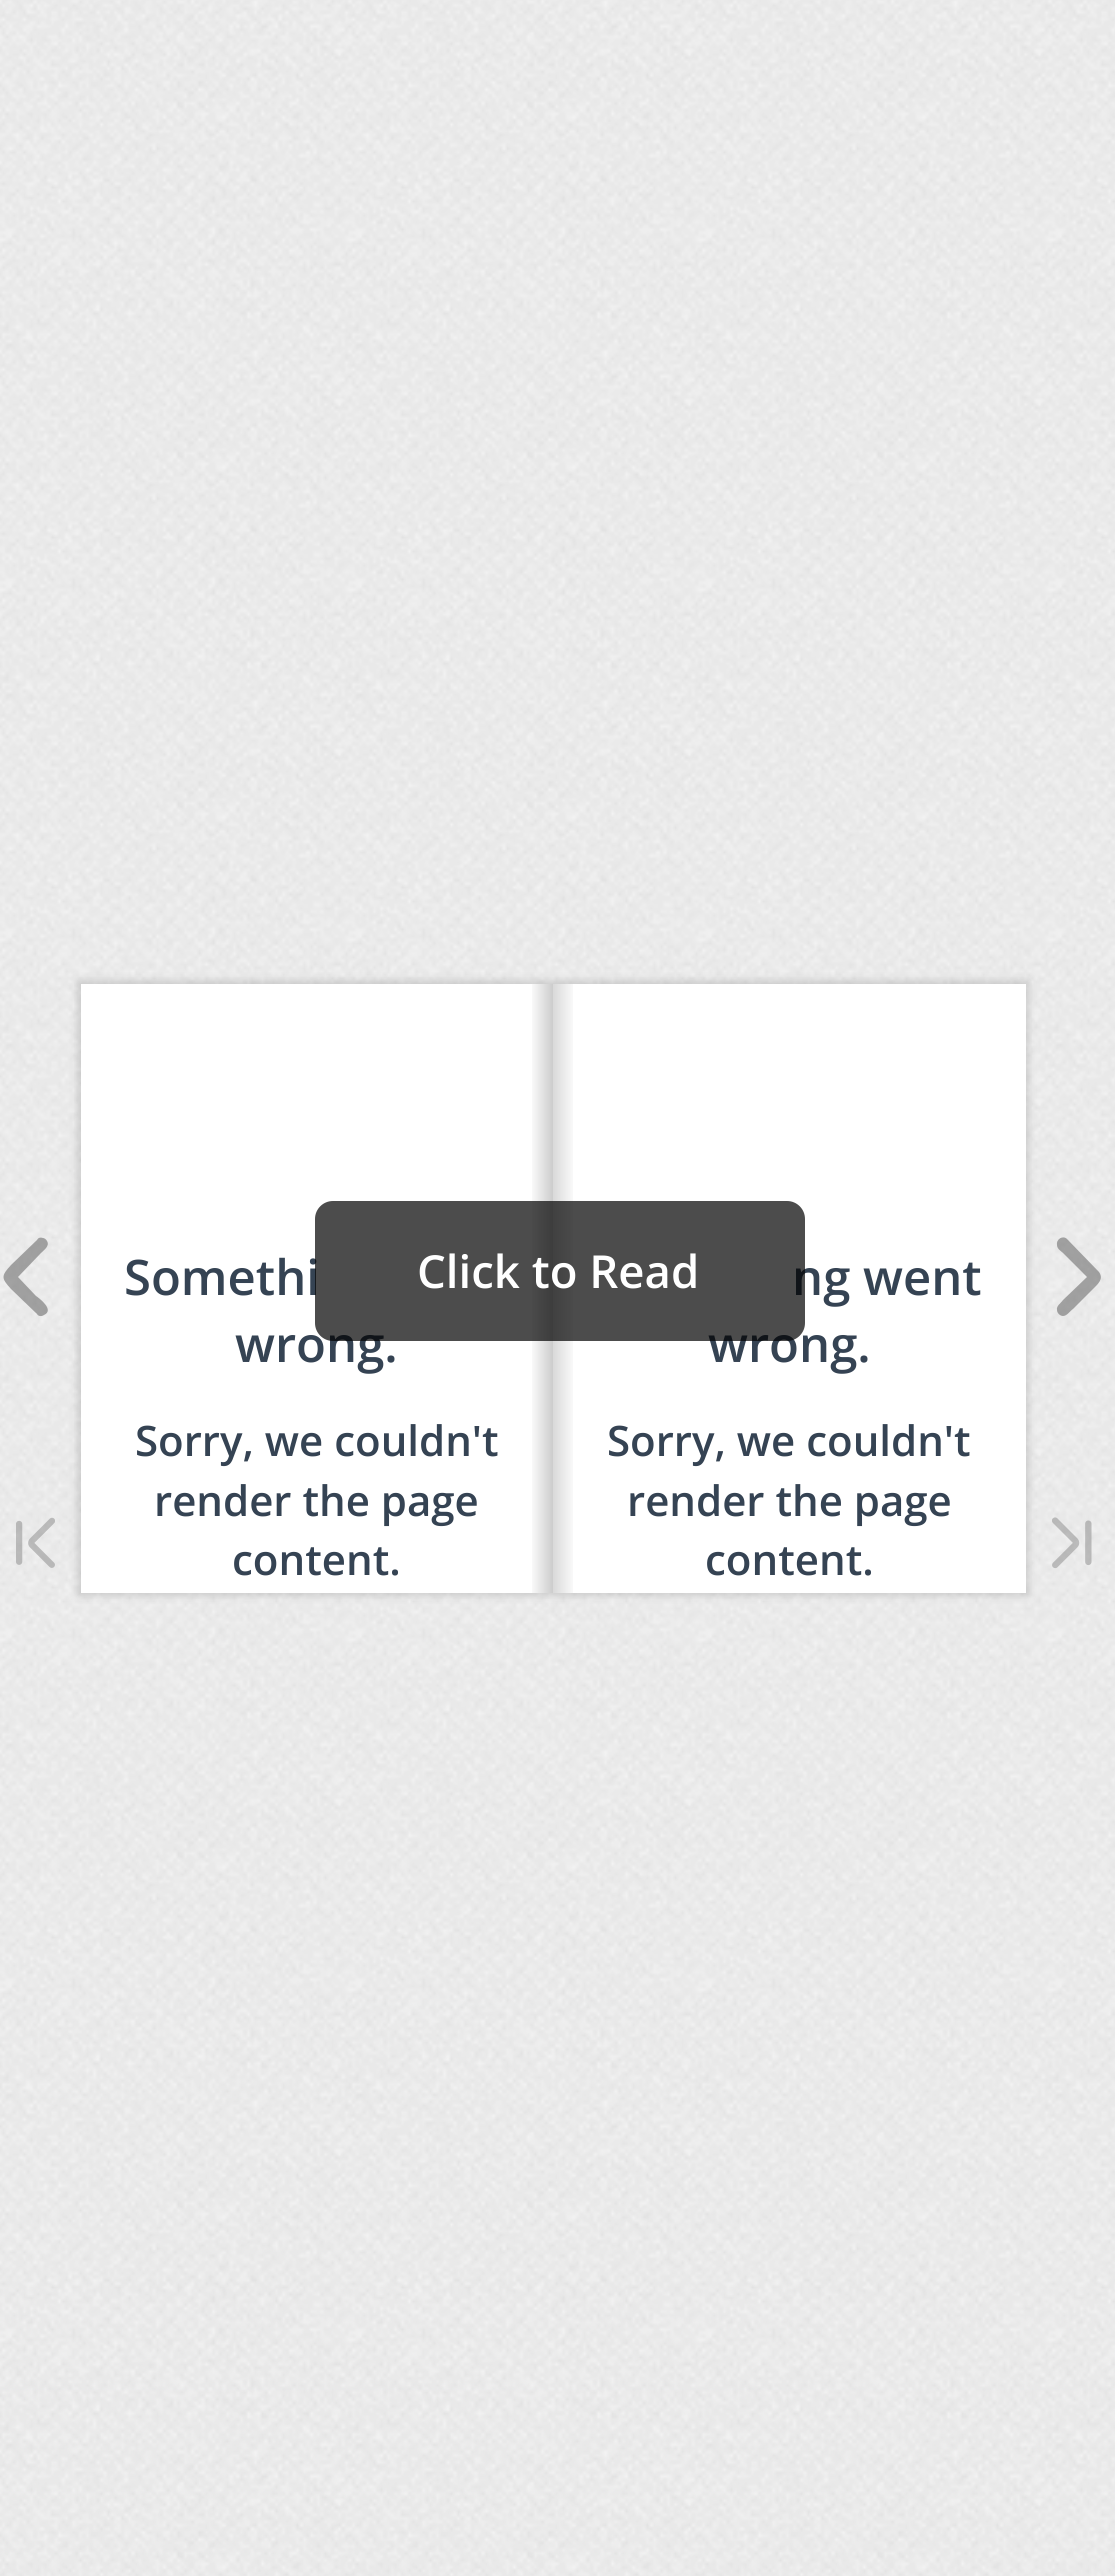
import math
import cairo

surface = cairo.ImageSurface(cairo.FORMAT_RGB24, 1115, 2576)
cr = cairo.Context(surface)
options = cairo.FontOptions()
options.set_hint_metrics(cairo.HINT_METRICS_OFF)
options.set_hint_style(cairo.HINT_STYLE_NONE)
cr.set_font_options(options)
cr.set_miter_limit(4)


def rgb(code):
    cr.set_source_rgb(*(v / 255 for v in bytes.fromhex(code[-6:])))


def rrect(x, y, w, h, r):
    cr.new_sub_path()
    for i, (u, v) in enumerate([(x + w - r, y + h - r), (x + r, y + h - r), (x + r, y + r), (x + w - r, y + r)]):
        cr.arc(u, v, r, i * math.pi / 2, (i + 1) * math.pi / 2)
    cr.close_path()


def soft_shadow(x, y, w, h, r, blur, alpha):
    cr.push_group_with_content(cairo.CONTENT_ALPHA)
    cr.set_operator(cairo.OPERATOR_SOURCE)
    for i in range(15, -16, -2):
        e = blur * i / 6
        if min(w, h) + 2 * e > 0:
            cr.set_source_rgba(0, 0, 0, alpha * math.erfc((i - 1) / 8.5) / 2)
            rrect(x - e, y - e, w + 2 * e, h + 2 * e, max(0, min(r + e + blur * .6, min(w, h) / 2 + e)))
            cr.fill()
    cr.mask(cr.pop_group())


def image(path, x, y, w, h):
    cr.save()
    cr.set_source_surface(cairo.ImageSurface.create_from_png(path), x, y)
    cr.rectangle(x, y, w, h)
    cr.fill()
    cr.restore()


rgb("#f2f2f2")
cr.paint()
image("img/1.png", 0, 0, 1115, 2576)
cr.set_source_rgba(0.431, 0.431, 0.431, 0.6)
cr.new_path()
cr.move_to(37, 1314)
cr.line_to(11, 1289)
cr.curve_to(1, 1278, 1, 1276, 11, 1265)
cr.line_to(37, 1240)
cr.curve_to(38, 1238, 40, 1237, 43, 1238)
cr.curve_to(44, 1238, 46, 1239, 47, 1241)
cr.curve_to(50, 1246, 44, 1250, 41, 1253)
cr.line_to(18, 1277)
cr.line_to(36, 1296)
cr.curve_to(39, 1298, 55, 1310, 44, 1315)
cr.curve_to(41, 1317, 38, 1316, 37, 1314)
cr.close_path()
cr.fill()
image("img/2.png", 16, 1517, 39, 51)
rgb("#737373")
soft_shadow(77, 980, 952, 616, 0, 3.5, 0.25)
cr.set_source_rgba(0.431, 0.431, 0.431, 0.6)
cr.new_path()
cr.move_to(1063, 1316)
cr.curve_to(1060, 1316, 1057, 1313, 1057, 1310)
cr.curve_to(1056, 1306, 1061, 1303, 1063, 1300)
cr.line_to(1087, 1277)
cr.line_to(1063, 1253)
cr.curve_to(1061, 1251, 1057, 1249, 1057, 1245)
cr.curve_to(1056, 1239, 1063, 1235, 1067, 1239)
cr.line_to(1099, 1272)
cr.curve_to(1104, 1279, 1098, 1284, 1093, 1289)
cr.line_to(1073, 1309)
cr.curve_to(1070, 1311, 1067, 1316, 1063, 1316)
cr.close_path()
cr.fill()
image("img/3.png", 1052, 1517, 40, 52)
rgb("#ffffff")
cr.rectangle(81, 984, 945, 609)
cr.fill()
gradient = cairo.LinearGradient(81, 1288, 553, 1288)
gradient.add_color_stop_rgba(0.95, 0, 0, 0, 0)
gradient.add_color_stop_rgba(1, 0, 0, 0, 0.2)
cr.set_source(gradient)
cr.rectangle(532, 984, 21, 609)
cr.fill()
gradient = cairo.LinearGradient(1026, 1288, 553, 1288)
gradient.add_color_stop_rgba(0.95, 0, 0, 0, 0)
gradient.add_color_stop_rgba(1, 0, 0, 0, 0.15)
cr.set_source(gradient)
cr.rectangle(553, 984, 20, 609)
cr.fill()
cr.select_font_face("Open Sans SemiBold")
cr.set_font_size(49)
rgb("#354353")
cr.move_to(124, 1295)
cr.show_text("Somethi")
cr.move_to(235, 1362)
cr.show_text("wrong.")
cr.set_font_size(42)
for x, y, s in [
    (135, 1456, "Sorry, we couldn't"),
    (154, 1516, "render the page"),
    (232, 1575, "content."),
]:
    cr.move_to(x, y)
    cr.show_text(s)
cr.set_font_size(49)
cr.move_to(792, 1295)
cr.show_text("ng went")
cr.move_to(708, 1362)
cr.show_text("wrong.")
cr.set_source_rgba(0, 0, 0, 0.7)
rrect(315, 1201, 490, 140, 18)
cr.fill()
cr.set_font_size(45.5)
rgb("#ffffff")
cr.move_to(417, 1288)
cr.show_text("Click to Read")
cr.set_font_size(42)
rgb("#354353")
for x, y, s in [
    (607, 1456, "Sorry, we couldn't"),
    (627, 1516, "render the page"),
    (705, 1575, "content."),
]:
    cr.move_to(x, y)
    cr.show_text(s)
surface.write_to_png("page.png")
